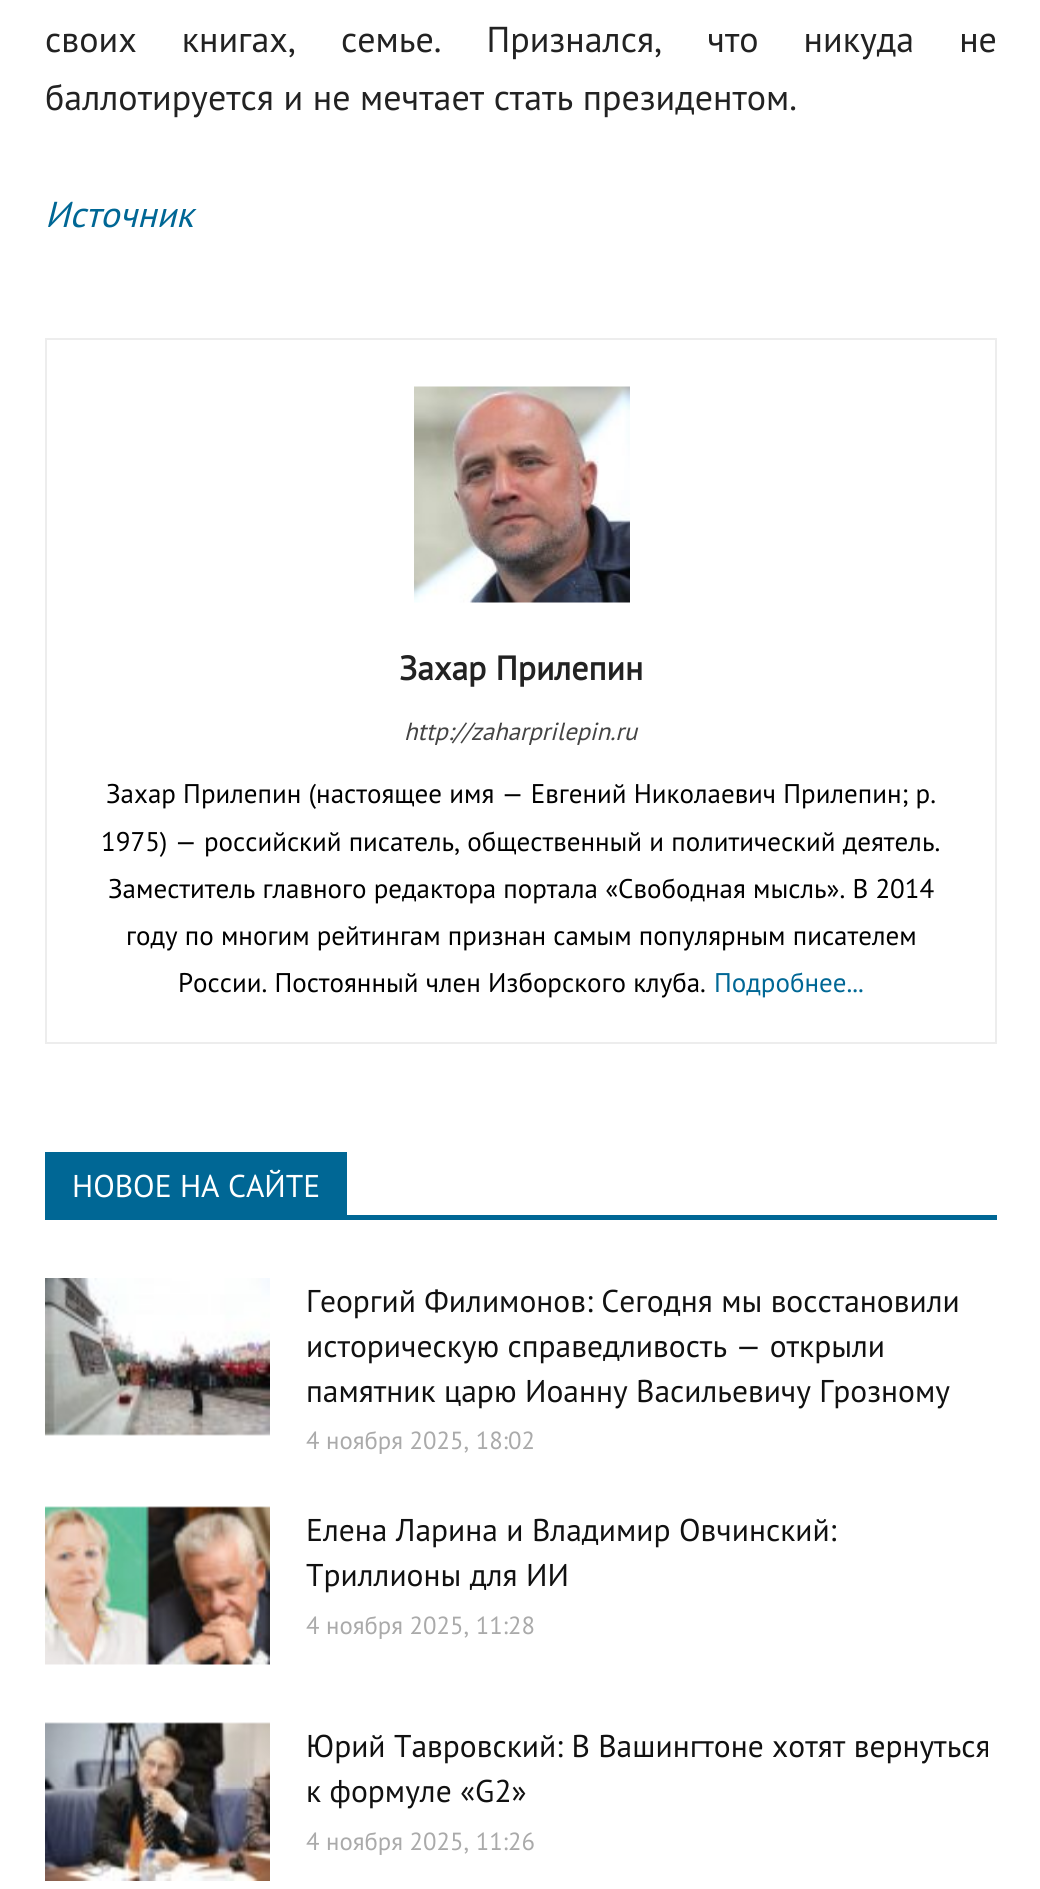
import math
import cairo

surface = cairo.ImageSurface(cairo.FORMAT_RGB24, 1040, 1889)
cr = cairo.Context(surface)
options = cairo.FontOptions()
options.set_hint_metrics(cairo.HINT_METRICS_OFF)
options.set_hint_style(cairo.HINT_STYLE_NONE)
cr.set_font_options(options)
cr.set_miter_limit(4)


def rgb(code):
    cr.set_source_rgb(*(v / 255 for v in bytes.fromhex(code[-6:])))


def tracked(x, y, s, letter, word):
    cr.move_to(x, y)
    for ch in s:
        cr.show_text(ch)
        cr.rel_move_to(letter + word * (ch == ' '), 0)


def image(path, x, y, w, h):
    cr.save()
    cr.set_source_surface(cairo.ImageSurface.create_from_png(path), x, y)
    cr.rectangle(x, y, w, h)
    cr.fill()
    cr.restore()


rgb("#ffffff")
cr.paint()
cr.rectangle(46, 339, 950, 704)
rgb("#ededed")
cr.stroke()
image("img/1.png", 414, 386, 216, 217)
rgb("#006795")
cr.rectangle(45, 1215, 952, 5)
cr.fill()
cr.rectangle(45, 1152, 302, 63)
cr.fill()
image("img/2.png", 45, 1278, 225, 158)
image("img/3.png", 45, 1506, 225, 159)
image("img/4.png", 45, 1722, 225, 159)
cr.select_font_face("PT Sans")
cr.set_font_size(36)
rgb("#222222")
tracked(45, 52, "своих книгах, семье. Признался, что никуда не", 0, 35.5)
cr.move_to(45, 110)
cr.show_text("баллотируется и не мечтает стать президентом.")
cr.select_font_face("PT Sans", cairo.FONT_SLANT_ITALIC)
rgb("#006795")
cr.move_to(45, 227)
cr.show_text("Источник")
cr.select_font_face("PT Sans", cairo.FONT_SLANT_NORMAL, cairo.FONT_WEIGHT_BOLD)
cr.set_font_size(33.75)
rgb("#222222")
cr.move_to(399, 680)
cr.show_text("Захар Прилепин")
cr.select_font_face("PT Sans", cairo.FONT_SLANT_ITALIC)
cr.set_font_size(24.75)
rgb("#444444")
cr.move_to(404, 740)
cr.show_text("http://zaharprilepin.ru")
cr.select_font_face("PT Sans")
cr.set_font_size(27)
rgb("#000000")
for x, y, s in [
    (106, 803, "Захар Прилепин (настоящее имя — Евгений Николаевич Прилепин; р."),
    (101, 851, "1975) — российский писатель, общественный и политический деятель."),
    (108, 898, "Заместитель главного редактора портала «Свободная мысль». В 2014"),
    (126, 945, "году по многим рейтингам признан самым популярным писателем"),
    (178, 992, "России. Постоянный член Изборского клуба."),
]:
    cr.move_to(x, y)
    cr.show_text(s)
rgb("#006795")
cr.move_to(714, 992)
cr.show_text("Подробнее...")
cr.set_font_size(31.5)
rgb("#ffffff")
cr.move_to(72, 1197)
cr.show_text("НОВОЕ НА САЙТЕ")
rgb("#111111")
for x, y, s in [
    (306, 1312, "Георгий Филимонов: Сегодня мы восстановили"),
    (306, 1357, "историческую справедливость — открыли"),
    (306, 1402, "памятник царю Иоанну Васильевичу Грозному"),
]:
    cr.move_to(x, y)
    cr.show_text(s)
cr.set_font_size(24.75)
rgb("#aaaaaa")
cr.move_to(306, 1449)
cr.show_text("4 ноября 2025, 18:02")
cr.set_font_size(31.5)
rgb("#111111")
cr.move_to(306, 1541)
cr.show_text("Елена Ларина и Владимир Овчинский:")
cr.move_to(306, 1586)
cr.show_text("Триллионы для ИИ")
cr.set_font_size(24.75)
rgb("#aaaaaa")
cr.move_to(306, 1634)
cr.show_text("4 ноября 2025, 11:28")
cr.set_font_size(31.5)
rgb("#111111")
cr.move_to(306, 1757)
cr.show_text("Юрий Тавровский: В Вашингтоне хотят вернуться")
cr.move_to(306, 1802)
cr.show_text("к формуле «G2»")
cr.set_font_size(24.75)
rgb("#aaaaaa")
cr.move_to(306, 1850)
cr.show_text("4 ноября 2025, 11:26")
surface.write_to_png("page.png")
